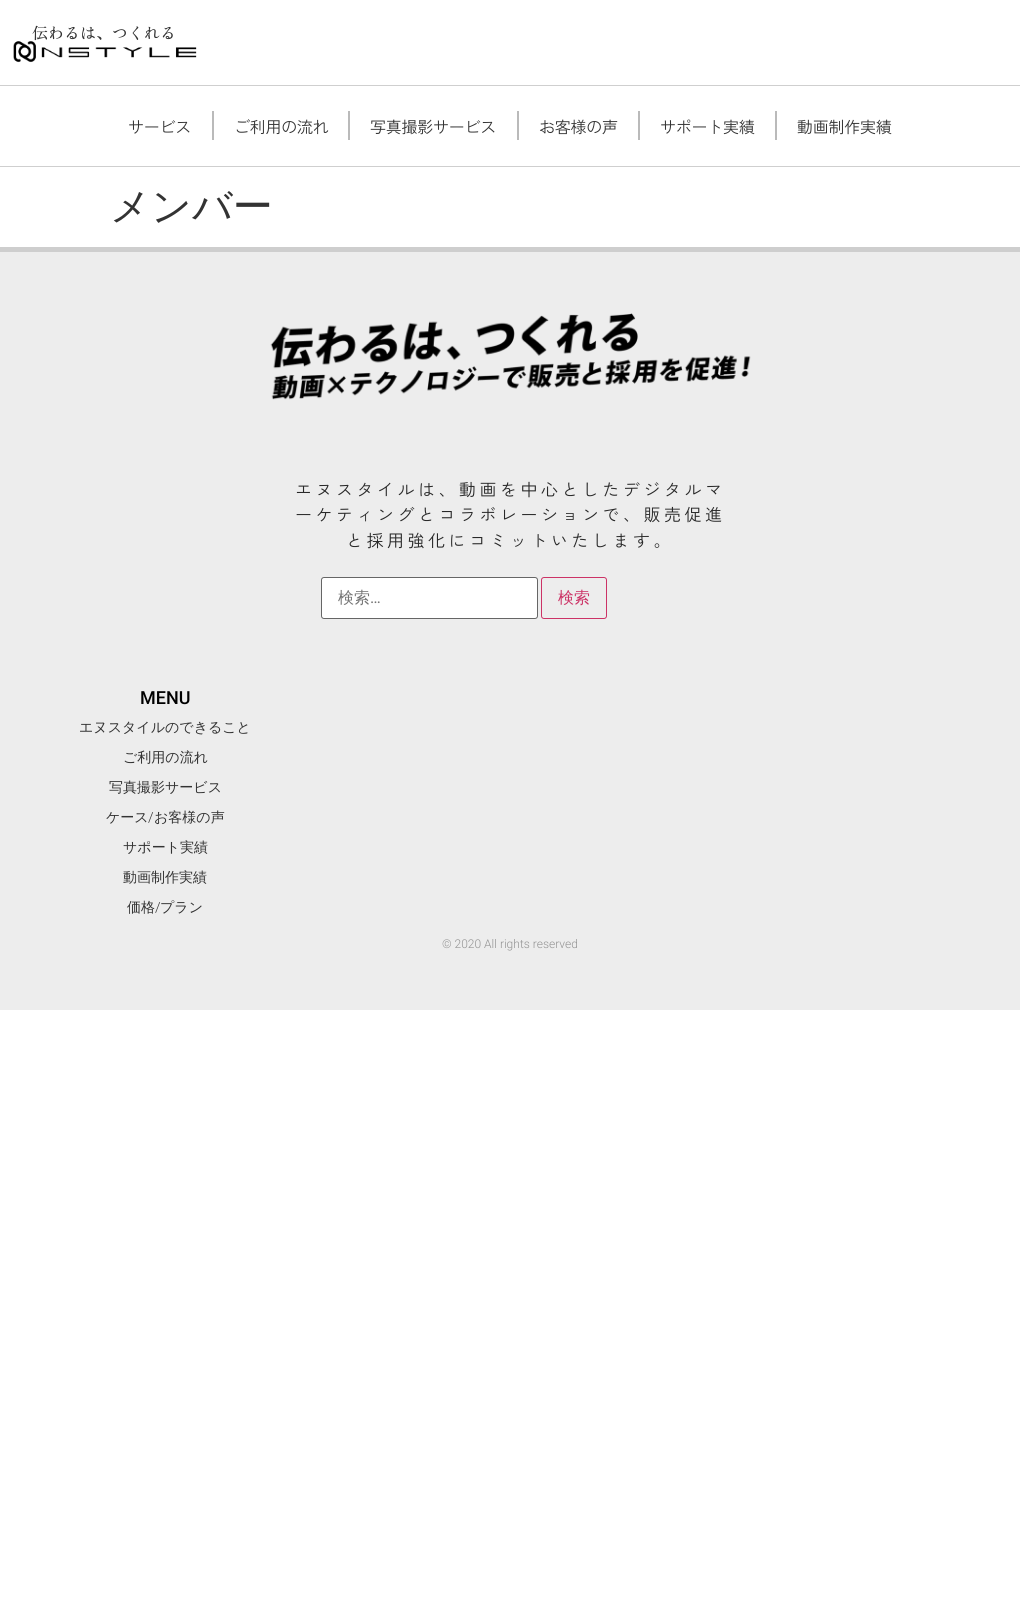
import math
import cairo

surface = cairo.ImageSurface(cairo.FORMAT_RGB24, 1020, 1618)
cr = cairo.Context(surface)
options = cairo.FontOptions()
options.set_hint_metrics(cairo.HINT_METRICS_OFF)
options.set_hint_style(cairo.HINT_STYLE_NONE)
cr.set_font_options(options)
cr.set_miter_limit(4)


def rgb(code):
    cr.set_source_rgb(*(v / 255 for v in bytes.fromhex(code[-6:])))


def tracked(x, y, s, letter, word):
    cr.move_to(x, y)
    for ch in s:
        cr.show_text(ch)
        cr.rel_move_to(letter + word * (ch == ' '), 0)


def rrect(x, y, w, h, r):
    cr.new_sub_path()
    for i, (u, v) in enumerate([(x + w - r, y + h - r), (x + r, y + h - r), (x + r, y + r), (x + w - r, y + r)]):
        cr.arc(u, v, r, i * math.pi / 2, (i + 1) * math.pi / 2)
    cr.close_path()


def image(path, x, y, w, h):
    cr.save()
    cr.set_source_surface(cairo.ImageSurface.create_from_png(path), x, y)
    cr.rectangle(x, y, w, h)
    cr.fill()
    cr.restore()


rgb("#ffffff")
cr.paint()
image("img/1.png", 13, 41, 184, 22)
for x, y, w, h, color in [
    (0, 85, 1020, 1, "#cfcfcf"),
    (0, 166, 1020, 1, "#cfcfcf"),
    (212, 111, 2, 29, "#bababa"),
    (348, 111, 2, 29, "#bababa"),
    (517, 111, 2, 29, "#bababa"),
    (638, 111, 2, 29, "#bababa"),
    (775, 111, 2, 29, "#bababa"),
    (0, 252, 1020, 758, "#ededed"),
    (0, 247, 1020, 5, "#cecece"),
]:
    rgb(color)
    cr.rectangle(x, y, w, h)
    cr.fill()
image("img/2.png", 270, 313, 481, 87)
rgb("#ffffff")
rrect(321.5, 577.5, 216, 41, 2.5)
cr.fill_preserve()
rgb("#666666")
cr.set_line_width(1)
cr.stroke()
rrect(541.5, 577.5, 65, 41, 2.5)
rgb("#cc3366")
cr.stroke()
cr.select_font_face("Zen Old Mincho Medium")
cr.set_font_size(16)
rgb("#333333")
cr.move_to(32, 39)
cr.show_text("伝わるは、つくれる")
cr.select_font_face("Zen Kaku Gothic Antique")
for x, y, s in [
    (128, 133, "サービス"),
    (234, 133, "ご利用の流れ"),
    (370, 133, "写真撮影サービス"),
    (539, 133, "お客様の声"),
    (660, 133, "サポート実績"),
    (797, 133, "動画制作実績"),
]:
    tracked(x, y, s, -0.25, 0)
cr.select_font_face("WenQuanYi Zen Hei Medium")
cr.set_font_size(40)
cr.move_to(110, 220)
cr.show_text("メンバー")
cr.select_font_face("Zen Kaku Gothic New")
cr.set_font_size(17)
rgb("#282828")
for x, y, s in [
    (295, 496, "エヌスタイルは、動画を中心としたデジタルマ"),
    (295, 521, "ーケティングとコラボレーションで、販売促進"),
    (346, 547, "と採用強化にコミットいたします。"),
]:
    tracked(x, y, s, 3.5, 0)
cr.select_font_face("WenQuanYi Zen Hei Medium")
cr.set_font_size(16)
rgb("#757575")
cr.move_to(338, 603)
cr.show_text("検索")
cr.select_font_face("Roboto")
cr.move_to(370, 603)
cr.show_text("…")
cr.select_font_face("WenQuanYi Zen Hei Medium")
rgb("#cc3366")
cr.move_to(558, 603)
cr.show_text("検索")
cr.select_font_face("Roboto Medium")
cr.set_font_size(18)
rgb("#000000")
cr.move_to(140, 704)
cr.show_text("MENU")
cr.select_font_face("WenQuanYi Zen Hei Medium")
cr.set_font_size(14)
rgb("#333333")
for x, y, s in [
    (79, 732, "エヌスタイルのできること"),
    (123, 762, "ご利用の流れ"),
    (109, 792, "写真撮影サービス"),
    (106, 822, "ケース"),
]:
    cr.move_to(x, y)
    cr.show_text(s)
cr.select_font_face("Roboto Light")
cr.move_to(148, 822)
cr.show_text("/")
cr.select_font_face("WenQuanYi Zen Hei Medium")
for x, y, s in [
    (154, 822, "お客様の声"),
    (123, 852, "サポート実績"),
    (123, 882, "動画制作実績"),
    (127, 912, "価格"),
]:
    cr.move_to(x, y)
    cr.show_text(s)
cr.select_font_face("Roboto Light")
cr.move_to(155, 912)
cr.show_text("/")
cr.select_font_face("WenQuanYi Zen Hei Medium")
cr.move_to(160, 912)
cr.show_text("プラン")
cr.select_font_face("Roboto Light")
cr.set_font_size(12)
rgb("#939393")
cr.move_to(442, 948)
cr.show_text("© 2020 All rights reserved")
surface.write_to_png("page.png")
